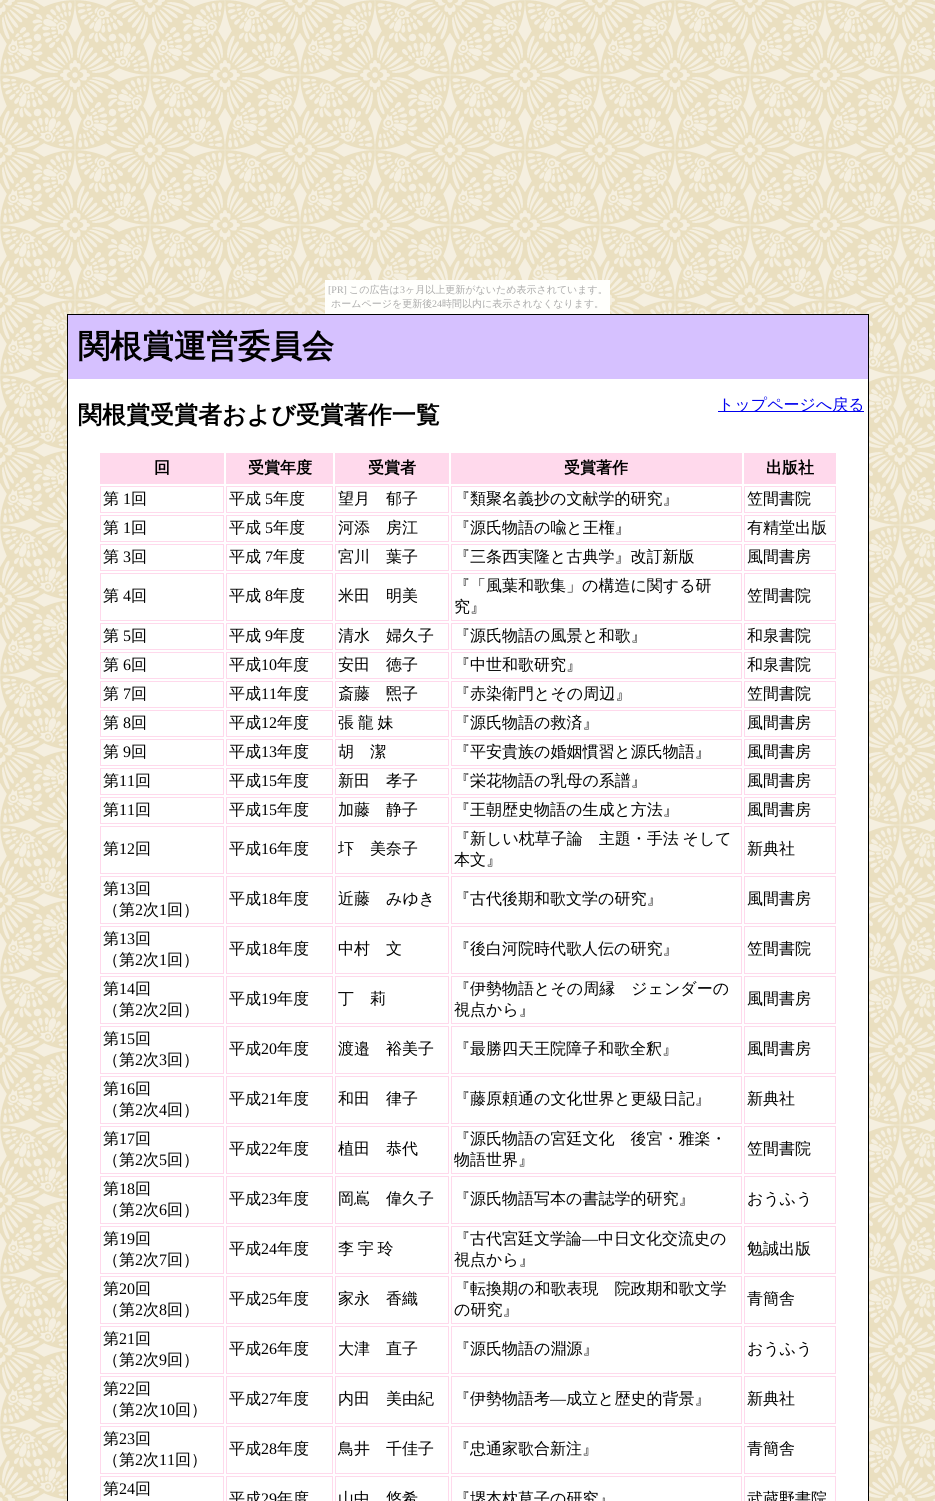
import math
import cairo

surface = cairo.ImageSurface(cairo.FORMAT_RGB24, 935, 1501)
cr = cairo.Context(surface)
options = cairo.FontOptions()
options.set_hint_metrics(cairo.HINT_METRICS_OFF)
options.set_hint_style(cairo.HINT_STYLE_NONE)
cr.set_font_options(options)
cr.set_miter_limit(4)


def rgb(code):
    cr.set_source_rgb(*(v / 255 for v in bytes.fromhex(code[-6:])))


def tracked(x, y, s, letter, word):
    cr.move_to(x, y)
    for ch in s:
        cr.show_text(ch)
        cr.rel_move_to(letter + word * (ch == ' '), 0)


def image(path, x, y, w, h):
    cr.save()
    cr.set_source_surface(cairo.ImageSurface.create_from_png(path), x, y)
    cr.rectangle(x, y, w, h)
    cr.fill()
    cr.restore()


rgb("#ffffff")
cr.paint()
image("img/1.png", 0, 0, 935, 1501)
rgb("#fffffc")
cr.rectangle(325, 280, 285, 34)
cr.fill()
rgb("#ffffff")
cr.rectangle(68, 379, 800, 1122)
cr.fill()
cr.rectangle(67.5, 314.5, 801, 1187)
rgb("#000000")
cr.set_line_width(1)
cr.stroke()
for x, y, w, h, color in [
    (68, 315, 800, 64, "#d6c1ff"),
    (718, 411, 146, 1, "#0000ee"),
    (100, 453, 124, 31, "#ffd9ec"),
    (226, 453, 107, 31, "#ffd9ec"),
    (335, 453, 114, 31, "#ffd9ec"),
    (451, 453, 291, 31, "#ffd9ec"),
    (744, 453, 92, 31, "#ffd9ec"),
]:
    rgb(color)
    cr.rectangle(x, y, w, h)
    cr.fill()
cr.rectangle(100.5, 486.5, 123, 26)
cr.stroke()
cr.rectangle(226.5, 486.5, 106, 26)
cr.stroke()
cr.rectangle(335.5, 486.5, 113, 26)
cr.stroke()
cr.rectangle(451.5, 486.5, 290, 26)
cr.stroke()
cr.rectangle(744.5, 486.5, 91, 26)
cr.stroke()
cr.rectangle(100.5, 515.5, 123, 26)
cr.stroke()
cr.rectangle(226.5, 515.5, 106, 26)
cr.stroke()
cr.rectangle(335.5, 515.5, 113, 26)
cr.stroke()
cr.rectangle(451.5, 515.5, 290, 26)
cr.stroke()
cr.rectangle(744.5, 515.5, 91, 26)
cr.stroke()
cr.rectangle(100.5, 544.5, 123, 26)
cr.stroke()
cr.rectangle(226.5, 544.5, 106, 26)
cr.stroke()
cr.rectangle(335.5, 544.5, 113, 26)
cr.stroke()
cr.rectangle(451.5, 544.5, 290, 26)
cr.stroke()
cr.rectangle(744.5, 544.5, 91, 26)
cr.stroke()
cr.rectangle(100.5, 573.5, 123, 47)
cr.stroke()
cr.rectangle(226.5, 573.5, 106, 47)
cr.stroke()
cr.rectangle(335.5, 573.5, 113, 47)
cr.stroke()
cr.rectangle(451.5, 573.5, 290, 47)
cr.stroke()
cr.rectangle(744.5, 573.5, 91, 47)
cr.stroke()
cr.rectangle(100.5, 623.5, 123, 26)
cr.stroke()
cr.rectangle(226.5, 623.5, 106, 26)
cr.stroke()
cr.rectangle(335.5, 623.5, 113, 26)
cr.stroke()
cr.rectangle(451.5, 623.5, 290, 26)
cr.stroke()
cr.rectangle(744.5, 623.5, 91, 26)
cr.stroke()
cr.rectangle(100.5, 652.5, 123, 26)
cr.stroke()
cr.rectangle(226.5, 652.5, 106, 26)
cr.stroke()
cr.rectangle(335.5, 652.5, 113, 26)
cr.stroke()
cr.rectangle(451.5, 652.5, 290, 26)
cr.stroke()
cr.rectangle(744.5, 652.5, 91, 26)
cr.stroke()
cr.rectangle(100.5, 681.5, 123, 26)
cr.stroke()
cr.rectangle(226.5, 681.5, 106, 26)
cr.stroke()
cr.rectangle(335.5, 681.5, 113, 26)
cr.stroke()
cr.rectangle(451.5, 681.5, 290, 26)
cr.stroke()
cr.rectangle(744.5, 681.5, 91, 26)
cr.stroke()
cr.rectangle(100.5, 710.5, 123, 26)
cr.stroke()
cr.rectangle(226.5, 710.5, 106, 26)
cr.stroke()
cr.rectangle(335.5, 710.5, 113, 26)
cr.stroke()
cr.rectangle(451.5, 710.5, 290, 26)
cr.stroke()
cr.rectangle(744.5, 710.5, 91, 26)
cr.stroke()
cr.rectangle(100.5, 739.5, 123, 26)
cr.stroke()
cr.rectangle(226.5, 739.5, 106, 26)
cr.stroke()
cr.rectangle(335.5, 739.5, 113, 26)
cr.stroke()
cr.rectangle(451.5, 739.5, 290, 26)
cr.stroke()
cr.rectangle(744.5, 739.5, 91, 26)
cr.stroke()
cr.rectangle(100.5, 768.5, 123, 26)
cr.stroke()
cr.rectangle(226.5, 768.5, 106, 26)
cr.stroke()
cr.rectangle(335.5, 768.5, 113, 26)
cr.stroke()
cr.rectangle(451.5, 768.5, 290, 26)
cr.stroke()
cr.rectangle(744.5, 768.5, 91, 26)
cr.stroke()
cr.rectangle(100.5, 797.5, 123, 26)
cr.stroke()
cr.rectangle(226.5, 797.5, 106, 26)
cr.stroke()
cr.rectangle(335.5, 797.5, 113, 26)
cr.stroke()
cr.rectangle(451.5, 797.5, 290, 26)
cr.stroke()
cr.rectangle(744.5, 797.5, 91, 26)
cr.stroke()
cr.rectangle(100.5, 826.5, 123, 47)
cr.stroke()
cr.rectangle(226.5, 826.5, 106, 47)
cr.stroke()
cr.rectangle(335.5, 826.5, 113, 47)
cr.stroke()
cr.rectangle(451.5, 826.5, 290, 47)
cr.stroke()
cr.rectangle(744.5, 826.5, 91, 47)
cr.stroke()
cr.rectangle(100.5, 876.5, 123, 47)
cr.stroke()
cr.rectangle(226.5, 876.5, 106, 47)
cr.stroke()
cr.rectangle(335.5, 876.5, 113, 47)
cr.stroke()
cr.rectangle(451.5, 876.5, 290, 47)
cr.stroke()
cr.rectangle(744.5, 876.5, 91, 47)
cr.stroke()
cr.rectangle(100.5, 926.5, 123, 47)
cr.stroke()
cr.rectangle(226.5, 926.5, 106, 47)
cr.stroke()
cr.rectangle(335.5, 926.5, 113, 47)
cr.stroke()
cr.rectangle(451.5, 926.5, 290, 47)
cr.stroke()
cr.rectangle(744.5, 926.5, 91, 47)
cr.stroke()
cr.rectangle(100.5, 976.5, 123, 47)
cr.stroke()
cr.rectangle(226.5, 976.5, 106, 47)
cr.stroke()
cr.rectangle(335.5, 976.5, 113, 47)
cr.stroke()
cr.rectangle(451.5, 976.5, 290, 47)
cr.stroke()
cr.rectangle(744.5, 976.5, 91, 47)
cr.stroke()
cr.rectangle(100.5, 1026.5, 123, 47)
cr.stroke()
cr.rectangle(226.5, 1026.5, 106, 47)
cr.stroke()
cr.rectangle(335.5, 1026.5, 113, 47)
cr.stroke()
cr.rectangle(451.5, 1026.5, 290, 47)
cr.stroke()
cr.rectangle(744.5, 1026.5, 91, 47)
cr.stroke()
cr.rectangle(100.5, 1076.5, 123, 47)
cr.stroke()
cr.rectangle(226.5, 1076.5, 106, 47)
cr.stroke()
cr.rectangle(335.5, 1076.5, 113, 47)
cr.stroke()
cr.rectangle(451.5, 1076.5, 290, 47)
cr.stroke()
cr.rectangle(744.5, 1076.5, 91, 47)
cr.stroke()
cr.rectangle(100.5, 1126.5, 123, 47)
cr.stroke()
cr.rectangle(226.5, 1126.5, 106, 47)
cr.stroke()
cr.rectangle(335.5, 1126.5, 113, 47)
cr.stroke()
cr.rectangle(451.5, 1126.5, 290, 47)
cr.stroke()
cr.rectangle(744.5, 1126.5, 91, 47)
cr.stroke()
cr.rectangle(100.5, 1176.5, 123, 47)
cr.stroke()
cr.rectangle(226.5, 1176.5, 106, 47)
cr.stroke()
cr.rectangle(335.5, 1176.5, 113, 47)
cr.stroke()
cr.rectangle(451.5, 1176.5, 290, 47)
cr.stroke()
cr.rectangle(744.5, 1176.5, 91, 47)
cr.stroke()
cr.rectangle(100.5, 1226.5, 123, 47)
cr.stroke()
cr.rectangle(226.5, 1226.5, 106, 47)
cr.stroke()
cr.rectangle(335.5, 1226.5, 113, 47)
cr.stroke()
cr.rectangle(451.5, 1226.5, 290, 47)
cr.stroke()
cr.rectangle(744.5, 1226.5, 91, 47)
cr.stroke()
cr.rectangle(100.5, 1276.5, 123, 47)
cr.stroke()
cr.rectangle(226.5, 1276.5, 106, 47)
cr.stroke()
cr.rectangle(335.5, 1276.5, 113, 47)
cr.stroke()
cr.rectangle(451.5, 1276.5, 290, 47)
cr.stroke()
cr.rectangle(744.5, 1276.5, 91, 47)
cr.stroke()
cr.rectangle(100.5, 1326.5, 123, 47)
cr.stroke()
cr.rectangle(226.5, 1326.5, 106, 47)
cr.stroke()
cr.rectangle(335.5, 1326.5, 113, 47)
cr.stroke()
cr.rectangle(451.5, 1326.5, 290, 47)
cr.stroke()
cr.rectangle(744.5, 1326.5, 91, 47)
cr.stroke()
cr.rectangle(100.5, 1376.5, 123, 47)
cr.stroke()
cr.rectangle(226.5, 1376.5, 106, 47)
cr.stroke()
cr.rectangle(335.5, 1376.5, 113, 47)
cr.stroke()
cr.rectangle(451.5, 1376.5, 290, 47)
cr.stroke()
cr.rectangle(744.5, 1376.5, 91, 47)
cr.stroke()
cr.rectangle(100.5, 1426.5, 123, 47)
cr.stroke()
cr.rectangle(226.5, 1426.5, 106, 47)
cr.stroke()
cr.rectangle(335.5, 1426.5, 113, 47)
cr.stroke()
cr.rectangle(451.5, 1426.5, 290, 47)
cr.stroke()
cr.rectangle(744.5, 1426.5, 91, 47)
cr.stroke()
cr.rectangle(100.5, 1476.5, 123, 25)
cr.stroke()
cr.rectangle(226.5, 1476.5, 106, 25)
cr.stroke()
cr.rectangle(335.5, 1476.5, 113, 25)
cr.stroke()
cr.rectangle(451.5, 1476.5, 290, 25)
cr.stroke()
cr.rectangle(744.5, 1476.5, 91, 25)
cr.stroke()
cr.select_font_face("Liberation Serif")
cr.set_font_size(10)
rgb("#aaaaaa")
cr.move_to(328, 293)
cr.show_text("[PR]")
cr.select_font_face("WenQuanYi Zen Hei Medium")
cr.move_to(349, 293)
cr.show_text("この広告は")
cr.select_font_face("Liberation Serif")
cr.move_to(400, 293)
cr.show_text("3")
cr.select_font_face("WenQuanYi Zen Hei Medium")
cr.move_to(405, 293)
cr.show_text("ヶ月以上更新がないため表示されています。")
cr.move_to(331, 307)
cr.show_text("ホームページを更新後")
cr.select_font_face("Liberation Serif")
cr.move_to(432, 307)
cr.show_text("24")
cr.select_font_face("WenQuanYi Zen Hei Medium")
cr.move_to(442, 307)
cr.show_text("時間以内に表示されなくなります。")
cr.select_font_face("WenQuanYi Zen Hei", cairo.FONT_SLANT_NORMAL, cairo.FONT_WEIGHT_BOLD)
cr.set_font_size(32)
rgb("#000000")
cr.move_to(78, 357)
cr.show_text("関根賞運営委員会")
cr.select_font_face("WenQuanYi Zen Hei Medium")
cr.set_font_size(16)
rgb("#0000ee")
cr.move_to(718, 410)
cr.show_text("トップページへ戻る")
cr.select_font_face("WenQuanYi Zen Hei", cairo.FONT_SLANT_NORMAL, cairo.FONT_WEIGHT_BOLD)
cr.set_font_size(24)
rgb("#000000")
cr.move_to(78, 423)
cr.show_text("関根賞受賞者および受賞著作一覧")
cr.set_font_size(16)
for x, y, s in [
    (154, 473, "回"),
    (248, 473, "受賞年度"),
    (368, 473, "受賞者"),
    (564, 473, "受賞著作"),
    (766, 473, "出版社"),
]:
    cr.move_to(x, y)
    cr.show_text(s)
cr.select_font_face("WenQuanYi Zen Hei Medium")
cr.move_to(103, 504)
cr.show_text("第")
cr.select_font_face("Liberation Serif")
cr.move_to(123, 504)
cr.show_text("1")
cr.select_font_face("WenQuanYi Zen Hei Medium")
cr.move_to(131, 504)
cr.show_text("回")
cr.move_to(229, 504)
cr.show_text("平成")
cr.select_font_face("Liberation Serif")
cr.move_to(265, 504)
cr.show_text("5")
cr.select_font_face("WenQuanYi Zen Hei Medium")
for x, y, s in [
    (273, 504, "年度"),
    (338, 504, "望月　郁子"),
    (454, 504, "『類聚名義抄の文献学的研究』"),
    (747, 504, "笠間書院"),
    (103, 533, "第"),
]:
    cr.move_to(x, y)
    cr.show_text(s)
cr.select_font_face("Liberation Serif")
cr.move_to(123, 533)
cr.show_text("1")
cr.select_font_face("WenQuanYi Zen Hei Medium")
cr.move_to(131, 533)
cr.show_text("回")
cr.move_to(229, 533)
cr.show_text("平成")
cr.select_font_face("Liberation Serif")
cr.move_to(265, 533)
cr.show_text("5")
cr.select_font_face("WenQuanYi Zen Hei Medium")
for x, y, s in [
    (273, 533, "年度"),
    (338, 533, "河添　房江"),
    (454, 533, "『源氏物語の喩と王権』"),
    (747, 533, "有精堂出版"),
    (103, 562, "第"),
]:
    cr.move_to(x, y)
    cr.show_text(s)
cr.select_font_face("Liberation Serif")
cr.move_to(123, 562)
cr.show_text("3")
cr.select_font_face("WenQuanYi Zen Hei Medium")
cr.move_to(131, 562)
cr.show_text("回")
cr.move_to(229, 562)
cr.show_text("平成")
cr.select_font_face("Liberation Serif")
cr.move_to(265, 562)
cr.show_text("7")
cr.select_font_face("WenQuanYi Zen Hei Medium")
for x, y, s in [
    (273, 562, "年度"),
    (338, 562, "宮川　葉子"),
    (454, 562, "『三条西実隆と古典学』改訂新版"),
    (747, 562, "風間書房"),
    (103, 601, "第"),
]:
    cr.move_to(x, y)
    cr.show_text(s)
cr.select_font_face("Liberation Serif")
cr.move_to(123, 601)
cr.show_text("4")
cr.select_font_face("WenQuanYi Zen Hei Medium")
cr.move_to(131, 601)
cr.show_text("回")
cr.move_to(229, 601)
cr.show_text("平成")
cr.select_font_face("Liberation Serif")
cr.move_to(265, 601)
cr.show_text("8")
cr.select_font_face("WenQuanYi Zen Hei Medium")
for x, y, s in [
    (273, 601, "年度"),
    (338, 601, "米田　明美"),
    (454, 591, "『「風葉和歌集」の構造に関する研"),
    (454, 612, "究』"),
    (747, 601, "笠間書院"),
    (103, 641, "第"),
]:
    cr.move_to(x, y)
    cr.show_text(s)
cr.select_font_face("Liberation Serif")
cr.move_to(123, 641)
cr.show_text("5")
cr.select_font_face("WenQuanYi Zen Hei Medium")
cr.move_to(131, 641)
cr.show_text("回")
cr.move_to(229, 641)
cr.show_text("平成")
cr.select_font_face("Liberation Serif")
cr.move_to(265, 641)
cr.show_text("9")
cr.select_font_face("WenQuanYi Zen Hei Medium")
for x, y, s in [
    (273, 641, "年度"),
    (338, 641, "清水　婦久子"),
    (454, 641, "『源氏物語の風景と和歌』"),
    (747, 641, "和泉書院"),
    (103, 670, "第"),
]:
    cr.move_to(x, y)
    cr.show_text(s)
cr.select_font_face("Liberation Serif")
cr.move_to(123, 670)
cr.show_text("6")
cr.select_font_face("WenQuanYi Zen Hei Medium")
cr.move_to(131, 670)
cr.show_text("回")
cr.move_to(229, 670)
cr.show_text("平成")
cr.select_font_face("Liberation Serif")
cr.move_to(261, 670)
cr.show_text("10")
cr.select_font_face("WenQuanYi Zen Hei Medium")
for x, y, s in [
    (277, 670, "年度"),
    (338, 670, "安田　徳子"),
    (454, 670, "『中世和歌研究』"),
    (747, 670, "和泉書院"),
    (103, 699, "第"),
]:
    cr.move_to(x, y)
    cr.show_text(s)
cr.select_font_face("Liberation Serif")
cr.move_to(123, 699)
cr.show_text("7")
cr.select_font_face("WenQuanYi Zen Hei Medium")
cr.move_to(131, 699)
cr.show_text("回")
cr.move_to(229, 699)
cr.show_text("平成")
cr.select_font_face("Liberation Serif")
cr.move_to(261, 699)
cr.show_text("11")
cr.select_font_face("WenQuanYi Zen Hei Medium")
for x, y, s in [
    (277, 699, "年度"),
    (338, 699, "斎藤　煕子"),
    (454, 699, "『赤染衛門とその周辺』"),
    (747, 699, "笠間書院"),
    (103, 728, "第"),
]:
    cr.move_to(x, y)
    cr.show_text(s)
cr.select_font_face("Liberation Serif")
cr.move_to(123, 728)
cr.show_text("8")
cr.select_font_face("WenQuanYi Zen Hei Medium")
cr.move_to(131, 728)
cr.show_text("回")
cr.move_to(229, 728)
cr.show_text("平成")
cr.select_font_face("Liberation Serif")
cr.move_to(261, 728)
cr.show_text("12")
cr.select_font_face("WenQuanYi Zen Hei Medium")
cr.move_to(277, 728)
cr.show_text("年度")
tracked(338, 728, "張 龍 妹", 0, -1)
for x, y, s in [
    (454, 728, "『源氏物語の救済』"),
    (747, 728, "風間書房"),
    (103, 757, "第"),
]:
    cr.move_to(x, y)
    cr.show_text(s)
cr.select_font_face("Liberation Serif")
cr.move_to(123, 757)
cr.show_text("9")
cr.select_font_face("WenQuanYi Zen Hei Medium")
cr.move_to(131, 757)
cr.show_text("回")
cr.move_to(229, 757)
cr.show_text("平成")
cr.select_font_face("Liberation Serif")
cr.move_to(261, 757)
cr.show_text("13")
cr.select_font_face("WenQuanYi Zen Hei Medium")
for x, y, s in [
    (277, 757, "年度"),
    (338, 757, "胡　潔"),
    (454, 757, "『平安貴族の婚姻慣習と源氏物語』"),
    (747, 757, "風間書房"),
    (103, 786, "第"),
]:
    cr.move_to(x, y)
    cr.show_text(s)
cr.select_font_face("Liberation Serif")
cr.move_to(119, 786)
cr.show_text("11")
cr.select_font_face("WenQuanYi Zen Hei Medium")
cr.move_to(135, 786)
cr.show_text("回")
cr.move_to(229, 786)
cr.show_text("平成")
cr.select_font_face("Liberation Serif")
cr.move_to(261, 786)
cr.show_text("15")
cr.select_font_face("WenQuanYi Zen Hei Medium")
for x, y, s in [
    (277, 786, "年度"),
    (338, 786, "新田　孝子"),
    (454, 786, "『栄花物語の乳母の系譜』"),
    (747, 786, "風間書房"),
    (103, 815, "第"),
]:
    cr.move_to(x, y)
    cr.show_text(s)
cr.select_font_face("Liberation Serif")
cr.move_to(119, 815)
cr.show_text("11")
cr.select_font_face("WenQuanYi Zen Hei Medium")
cr.move_to(135, 815)
cr.show_text("回")
cr.move_to(229, 815)
cr.show_text("平成")
cr.select_font_face("Liberation Serif")
cr.move_to(261, 815)
cr.show_text("15")
cr.select_font_face("WenQuanYi Zen Hei Medium")
for x, y, s in [
    (277, 815, "年度"),
    (338, 815, "加藤　静子"),
    (454, 815, "『王朝歴史物語の生成と方法』"),
    (747, 815, "風間書房"),
    (103, 854, "第"),
]:
    cr.move_to(x, y)
    cr.show_text(s)
cr.select_font_face("Liberation Serif")
cr.move_to(119, 854)
cr.show_text("12")
cr.select_font_face("WenQuanYi Zen Hei Medium")
cr.move_to(135, 854)
cr.show_text("回")
cr.move_to(229, 854)
cr.show_text("平成")
cr.select_font_face("Liberation Serif")
cr.move_to(261, 854)
cr.show_text("16")
cr.select_font_face("WenQuanYi Zen Hei Medium")
cr.move_to(277, 854)
cr.show_text("年度")
cr.move_to(338, 854)
cr.show_text("圷　美奈子")
tracked(454, 844, "『新しい枕草子論　主題・手法 そして", 0, -1)
for x, y, s in [
    (454, 865, "本文』"),
    (747, 854, "新典社"),
    (103, 894, "第"),
]:
    cr.move_to(x, y)
    cr.show_text(s)
cr.select_font_face("Liberation Serif")
cr.move_to(119, 894)
cr.show_text("13")
cr.select_font_face("WenQuanYi Zen Hei Medium")
cr.move_to(135, 894)
cr.show_text("回")
cr.move_to(103, 915)
cr.show_text("（第")
cr.select_font_face("Liberation Serif")
cr.move_to(135, 915)
cr.show_text("2")
cr.select_font_face("WenQuanYi Zen Hei Medium")
cr.move_to(143, 915)
cr.show_text("次")
cr.select_font_face("Liberation Serif")
cr.move_to(159, 915)
cr.show_text("1")
cr.select_font_face("WenQuanYi Zen Hei Medium")
cr.move_to(167, 915)
cr.show_text("回）")
cr.move_to(229, 904)
cr.show_text("平成")
cr.select_font_face("Liberation Serif")
cr.move_to(261, 904)
cr.show_text("18")
cr.select_font_face("WenQuanYi Zen Hei Medium")
for x, y, s in [
    (277, 904, "年度"),
    (338, 904, "近藤　みゆき"),
    (454, 904, "『古代後期和歌文学の研究』"),
    (747, 904, "風間書房"),
    (103, 944, "第"),
]:
    cr.move_to(x, y)
    cr.show_text(s)
cr.select_font_face("Liberation Serif")
cr.move_to(119, 944)
cr.show_text("13")
cr.select_font_face("WenQuanYi Zen Hei Medium")
cr.move_to(135, 944)
cr.show_text("回")
cr.move_to(103, 965)
cr.show_text("（第")
cr.select_font_face("Liberation Serif")
cr.move_to(135, 965)
cr.show_text("2")
cr.select_font_face("WenQuanYi Zen Hei Medium")
cr.move_to(143, 965)
cr.show_text("次")
cr.select_font_face("Liberation Serif")
cr.move_to(159, 965)
cr.show_text("1")
cr.select_font_face("WenQuanYi Zen Hei Medium")
cr.move_to(167, 965)
cr.show_text("回）")
cr.move_to(229, 954)
cr.show_text("平成")
cr.select_font_face("Liberation Serif")
cr.move_to(261, 954)
cr.show_text("18")
cr.select_font_face("WenQuanYi Zen Hei Medium")
for x, y, s in [
    (277, 954, "年度"),
    (338, 954, "中村　文"),
    (454, 954, "『後白河院時代歌人伝の研究』"),
    (747, 954, "笠間書院"),
    (103, 994, "第"),
]:
    cr.move_to(x, y)
    cr.show_text(s)
cr.select_font_face("Liberation Serif")
cr.move_to(119, 994)
cr.show_text("14")
cr.select_font_face("WenQuanYi Zen Hei Medium")
cr.move_to(135, 994)
cr.show_text("回")
cr.move_to(103, 1015)
cr.show_text("（第")
cr.select_font_face("Liberation Serif")
cr.move_to(135, 1015)
cr.show_text("2")
cr.select_font_face("WenQuanYi Zen Hei Medium")
cr.move_to(143, 1015)
cr.show_text("次")
cr.select_font_face("Liberation Serif")
cr.move_to(159, 1015)
cr.show_text("2")
cr.select_font_face("WenQuanYi Zen Hei Medium")
cr.move_to(167, 1015)
cr.show_text("回）")
cr.move_to(229, 1004)
cr.show_text("平成")
cr.select_font_face("Liberation Serif")
cr.move_to(261, 1004)
cr.show_text("19")
cr.select_font_face("WenQuanYi Zen Hei Medium")
for x, y, s in [
    (277, 1004, "年度"),
    (338, 1004, "丁　莉"),
    (454, 994, "『伊勢物語とその周縁　ジェンダーの"),
    (454, 1015, "視点から』"),
    (747, 1004, "風間書房"),
    (103, 1044, "第"),
]:
    cr.move_to(x, y)
    cr.show_text(s)
cr.select_font_face("Liberation Serif")
cr.move_to(119, 1044)
cr.show_text("15")
cr.select_font_face("WenQuanYi Zen Hei Medium")
cr.move_to(135, 1044)
cr.show_text("回")
cr.move_to(103, 1065)
cr.show_text("（第")
cr.select_font_face("Liberation Serif")
cr.move_to(135, 1065)
cr.show_text("2")
cr.select_font_face("WenQuanYi Zen Hei Medium")
cr.move_to(143, 1065)
cr.show_text("次")
cr.select_font_face("Liberation Serif")
cr.move_to(159, 1065)
cr.show_text("3")
cr.select_font_face("WenQuanYi Zen Hei Medium")
cr.move_to(167, 1065)
cr.show_text("回）")
cr.move_to(229, 1054)
cr.show_text("平成")
cr.select_font_face("Liberation Serif")
cr.move_to(261, 1054)
cr.show_text("20")
cr.select_font_face("WenQuanYi Zen Hei Medium")
for x, y, s in [
    (277, 1054, "年度"),
    (338, 1054, "渡邉　裕美子"),
    (454, 1054, "『最勝四天王院障子和歌全釈』"),
    (747, 1054, "風間書房"),
    (103, 1094, "第"),
]:
    cr.move_to(x, y)
    cr.show_text(s)
cr.select_font_face("Liberation Serif")
cr.move_to(119, 1094)
cr.show_text("16")
cr.select_font_face("WenQuanYi Zen Hei Medium")
cr.move_to(135, 1094)
cr.show_text("回")
cr.move_to(103, 1115)
cr.show_text("（第")
cr.select_font_face("Liberation Serif")
cr.move_to(135, 1115)
cr.show_text("2")
cr.select_font_face("WenQuanYi Zen Hei Medium")
cr.move_to(143, 1115)
cr.show_text("次")
cr.select_font_face("Liberation Serif")
cr.move_to(159, 1115)
cr.show_text("4")
cr.select_font_face("WenQuanYi Zen Hei Medium")
cr.move_to(167, 1115)
cr.show_text("回）")
cr.move_to(229, 1104)
cr.show_text("平成")
cr.select_font_face("Liberation Serif")
cr.move_to(261, 1104)
cr.show_text("21")
cr.select_font_face("WenQuanYi Zen Hei Medium")
for x, y, s in [
    (277, 1104, "年度"),
    (338, 1104, "和田　律子"),
    (454, 1104, "『藤原頼通の文化世界と更級日記』"),
    (747, 1104, "新典社"),
    (103, 1144, "第"),
]:
    cr.move_to(x, y)
    cr.show_text(s)
cr.select_font_face("Liberation Serif")
cr.move_to(119, 1144)
cr.show_text("17")
cr.select_font_face("WenQuanYi Zen Hei Medium")
cr.move_to(135, 1144)
cr.show_text("回")
cr.move_to(103, 1165)
cr.show_text("（第")
cr.select_font_face("Liberation Serif")
cr.move_to(135, 1165)
cr.show_text("2")
cr.select_font_face("WenQuanYi Zen Hei Medium")
cr.move_to(143, 1165)
cr.show_text("次")
cr.select_font_face("Liberation Serif")
cr.move_to(159, 1165)
cr.show_text("5")
cr.select_font_face("WenQuanYi Zen Hei Medium")
cr.move_to(167, 1165)
cr.show_text("回）")
cr.move_to(229, 1154)
cr.show_text("平成")
cr.select_font_face("Liberation Serif")
cr.move_to(261, 1154)
cr.show_text("22")
cr.select_font_face("WenQuanYi Zen Hei Medium")
for x, y, s in [
    (277, 1154, "年度"),
    (338, 1154, "植田　恭代"),
    (454, 1144, "『源氏物語の宮廷文化　後宮・雅楽・"),
    (454, 1165, "物語世界』"),
    (747, 1154, "笠間書院"),
    (103, 1194, "第"),
]:
    cr.move_to(x, y)
    cr.show_text(s)
cr.select_font_face("Liberation Serif")
cr.move_to(119, 1194)
cr.show_text("18")
cr.select_font_face("WenQuanYi Zen Hei Medium")
cr.move_to(135, 1194)
cr.show_text("回")
cr.move_to(103, 1215)
cr.show_text("（第")
cr.select_font_face("Liberation Serif")
cr.move_to(135, 1215)
cr.show_text("2")
cr.select_font_face("WenQuanYi Zen Hei Medium")
cr.move_to(143, 1215)
cr.show_text("次")
cr.select_font_face("Liberation Serif")
cr.move_to(159, 1215)
cr.show_text("6")
cr.select_font_face("WenQuanYi Zen Hei Medium")
cr.move_to(167, 1215)
cr.show_text("回）")
cr.move_to(229, 1204)
cr.show_text("平成")
cr.select_font_face("Liberation Serif")
cr.move_to(261, 1204)
cr.show_text("23")
cr.select_font_face("WenQuanYi Zen Hei Medium")
for x, y, s in [
    (277, 1204, "年度"),
    (338, 1204, "岡嶌　偉久子"),
    (454, 1204, "『源氏物語写本の書誌学的研究』"),
    (747, 1204, "おうふう"),
    (103, 1244, "第"),
]:
    cr.move_to(x, y)
    cr.show_text(s)
cr.select_font_face("Liberation Serif")
cr.move_to(119, 1244)
cr.show_text("19")
cr.select_font_face("WenQuanYi Zen Hei Medium")
cr.move_to(135, 1244)
cr.show_text("回")
cr.move_to(103, 1265)
cr.show_text("（第")
cr.select_font_face("Liberation Serif")
cr.move_to(135, 1265)
cr.show_text("2")
cr.select_font_face("WenQuanYi Zen Hei Medium")
cr.move_to(143, 1265)
cr.show_text("次")
cr.select_font_face("Liberation Serif")
cr.move_to(159, 1265)
cr.show_text("7")
cr.select_font_face("WenQuanYi Zen Hei Medium")
cr.move_to(167, 1265)
cr.show_text("回）")
cr.move_to(229, 1254)
cr.show_text("平成")
cr.select_font_face("Liberation Serif")
cr.move_to(261, 1254)
cr.show_text("24")
cr.select_font_face("WenQuanYi Zen Hei Medium")
cr.move_to(277, 1254)
cr.show_text("年度")
tracked(338, 1254, "李 宇 玲", 0, -1)
cr.move_to(454, 1244)
cr.show_text("『古代宮廷文学論")
cr.select_font_face("Liberation Serif")
cr.move_to(582, 1244)
cr.show_text("―")
cr.select_font_face("WenQuanYi Zen Hei Medium")
for x, y, s in [
    (598, 1244, "中日文化交流史の"),
    (454, 1265, "視点から』"),
    (747, 1254, "勉誠出版"),
    (103, 1294, "第"),
]:
    cr.move_to(x, y)
    cr.show_text(s)
cr.select_font_face("Liberation Serif")
cr.move_to(119, 1294)
cr.show_text("20")
cr.select_font_face("WenQuanYi Zen Hei Medium")
cr.move_to(135, 1294)
cr.show_text("回")
cr.move_to(103, 1315)
cr.show_text("（第")
cr.select_font_face("Liberation Serif")
cr.move_to(135, 1315)
cr.show_text("2")
cr.select_font_face("WenQuanYi Zen Hei Medium")
cr.move_to(143, 1315)
cr.show_text("次")
cr.select_font_face("Liberation Serif")
cr.move_to(159, 1315)
cr.show_text("8")
cr.select_font_face("WenQuanYi Zen Hei Medium")
cr.move_to(167, 1315)
cr.show_text("回）")
cr.move_to(229, 1304)
cr.show_text("平成")
cr.select_font_face("Liberation Serif")
cr.move_to(261, 1304)
cr.show_text("25")
cr.select_font_face("WenQuanYi Zen Hei Medium")
for x, y, s in [
    (277, 1304, "年度"),
    (338, 1304, "家永　香織"),
    (454, 1294, "『転換期の和歌表現　院政期和歌文学"),
    (454, 1315, "の研究』"),
    (747, 1304, "青簡舎"),
    (103, 1344, "第"),
]:
    cr.move_to(x, y)
    cr.show_text(s)
cr.select_font_face("Liberation Serif")
cr.move_to(119, 1344)
cr.show_text("21")
cr.select_font_face("WenQuanYi Zen Hei Medium")
cr.move_to(135, 1344)
cr.show_text("回")
cr.move_to(103, 1365)
cr.show_text("（第")
cr.select_font_face("Liberation Serif")
cr.move_to(135, 1365)
cr.show_text("2")
cr.select_font_face("WenQuanYi Zen Hei Medium")
cr.move_to(143, 1365)
cr.show_text("次")
cr.select_font_face("Liberation Serif")
cr.move_to(159, 1365)
cr.show_text("9")
cr.select_font_face("WenQuanYi Zen Hei Medium")
cr.move_to(167, 1365)
cr.show_text("回）")
cr.move_to(229, 1354)
cr.show_text("平成")
cr.select_font_face("Liberation Serif")
cr.move_to(261, 1354)
cr.show_text("26")
cr.select_font_face("WenQuanYi Zen Hei Medium")
for x, y, s in [
    (277, 1354, "年度"),
    (338, 1354, "大津　直子"),
    (454, 1354, "『源氏物語の淵源』"),
    (747, 1354, "おうふう"),
    (103, 1394, "第"),
]:
    cr.move_to(x, y)
    cr.show_text(s)
cr.select_font_face("Liberation Serif")
cr.move_to(119, 1394)
cr.show_text("22")
cr.select_font_face("WenQuanYi Zen Hei Medium")
cr.move_to(135, 1394)
cr.show_text("回")
cr.move_to(103, 1415)
cr.show_text("（第")
cr.select_font_face("Liberation Serif")
cr.move_to(135, 1415)
cr.show_text("2")
cr.select_font_face("WenQuanYi Zen Hei Medium")
cr.move_to(143, 1415)
cr.show_text("次")
cr.select_font_face("Liberation Serif")
cr.move_to(159, 1415)
cr.show_text("10")
cr.select_font_face("WenQuanYi Zen Hei Medium")
cr.move_to(175, 1415)
cr.show_text("回）")
cr.move_to(229, 1404)
cr.show_text("平成")
cr.select_font_face("Liberation Serif")
cr.move_to(261, 1404)
cr.show_text("27")
cr.select_font_face("WenQuanYi Zen Hei Medium")
for x, y, s in [
    (277, 1404, "年度"),
    (338, 1404, "内田　美由紀"),
    (454, 1404, "『伊勢物語考"),
]:
    cr.move_to(x, y)
    cr.show_text(s)
cr.select_font_face("Liberation Serif")
cr.move_to(550, 1404)
cr.show_text("―")
cr.select_font_face("WenQuanYi Zen Hei Medium")
for x, y, s in [
    (566, 1404, "成立と歴史的背景』"),
    (747, 1404, "新典社"),
    (103, 1444, "第"),
]:
    cr.move_to(x, y)
    cr.show_text(s)
cr.select_font_face("Liberation Serif")
cr.move_to(119, 1444)
cr.show_text("23")
cr.select_font_face("WenQuanYi Zen Hei Medium")
cr.move_to(135, 1444)
cr.show_text("回")
cr.move_to(103, 1465)
cr.show_text("（第")
cr.select_font_face("Liberation Serif")
cr.move_to(135, 1465)
cr.show_text("2")
cr.select_font_face("WenQuanYi Zen Hei Medium")
cr.move_to(143, 1465)
cr.show_text("次")
cr.select_font_face("Liberation Serif")
cr.move_to(159, 1465)
cr.show_text("11")
cr.select_font_face("WenQuanYi Zen Hei Medium")
cr.move_to(175, 1465)
cr.show_text("回）")
cr.move_to(229, 1454)
cr.show_text("平成")
cr.select_font_face("Liberation Serif")
cr.move_to(261, 1454)
cr.show_text("28")
cr.select_font_face("WenQuanYi Zen Hei Medium")
for x, y, s in [
    (277, 1454, "年度"),
    (338, 1454, "鳥井　千佳子"),
    (454, 1454, "『忠通家歌合新注』"),
    (747, 1454, "青簡舎"),
    (103, 1494, "第"),
]:
    cr.move_to(x, y)
    cr.show_text(s)
cr.select_font_face("Liberation Serif")
cr.move_to(119, 1494)
cr.show_text("24")
cr.select_font_face("WenQuanYi Zen Hei Medium")
cr.move_to(135, 1494)
cr.show_text("回")
cr.move_to(229, 1504)
cr.show_text("平成")
cr.select_font_face("Liberation Serif")
cr.move_to(261, 1504)
cr.show_text("29")
cr.select_font_face("WenQuanYi Zen Hei Medium")
for x, y, s in [
    (277, 1504, "年度"),
    (338, 1504, "山中　悠希"),
    (454, 1504, "『堺本枕草子の研究』"),
    (747, 1504, "武蔵野書院"),
]:
    cr.move_to(x, y)
    cr.show_text(s)
surface.write_to_png("page.png")
